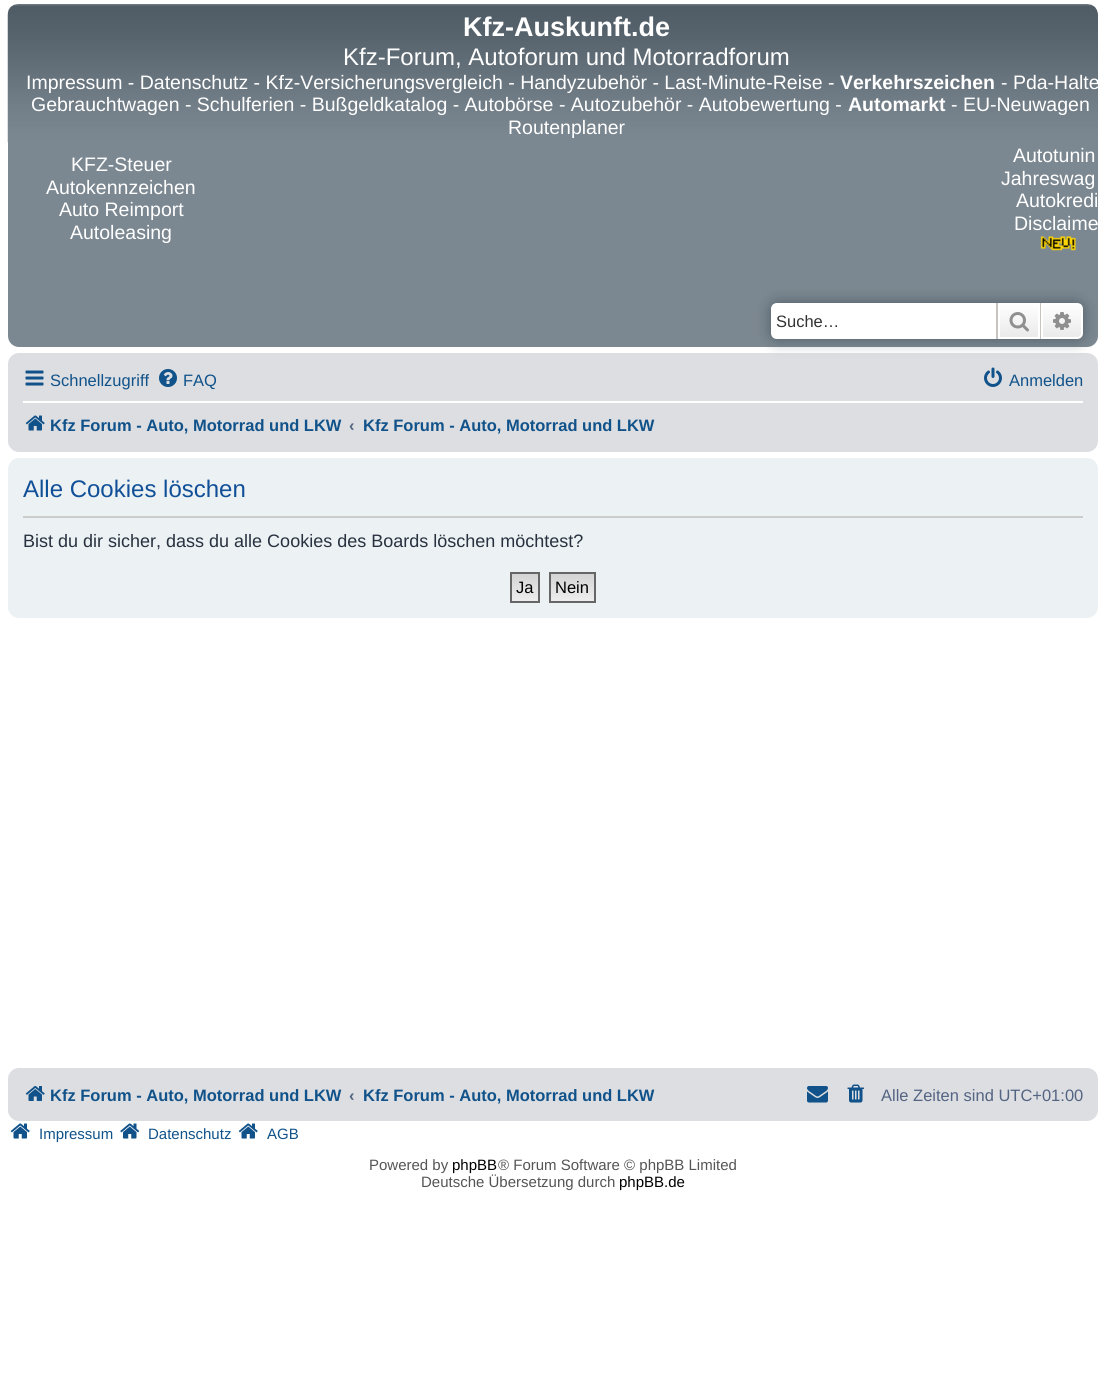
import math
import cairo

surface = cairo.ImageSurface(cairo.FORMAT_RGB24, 1105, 1382)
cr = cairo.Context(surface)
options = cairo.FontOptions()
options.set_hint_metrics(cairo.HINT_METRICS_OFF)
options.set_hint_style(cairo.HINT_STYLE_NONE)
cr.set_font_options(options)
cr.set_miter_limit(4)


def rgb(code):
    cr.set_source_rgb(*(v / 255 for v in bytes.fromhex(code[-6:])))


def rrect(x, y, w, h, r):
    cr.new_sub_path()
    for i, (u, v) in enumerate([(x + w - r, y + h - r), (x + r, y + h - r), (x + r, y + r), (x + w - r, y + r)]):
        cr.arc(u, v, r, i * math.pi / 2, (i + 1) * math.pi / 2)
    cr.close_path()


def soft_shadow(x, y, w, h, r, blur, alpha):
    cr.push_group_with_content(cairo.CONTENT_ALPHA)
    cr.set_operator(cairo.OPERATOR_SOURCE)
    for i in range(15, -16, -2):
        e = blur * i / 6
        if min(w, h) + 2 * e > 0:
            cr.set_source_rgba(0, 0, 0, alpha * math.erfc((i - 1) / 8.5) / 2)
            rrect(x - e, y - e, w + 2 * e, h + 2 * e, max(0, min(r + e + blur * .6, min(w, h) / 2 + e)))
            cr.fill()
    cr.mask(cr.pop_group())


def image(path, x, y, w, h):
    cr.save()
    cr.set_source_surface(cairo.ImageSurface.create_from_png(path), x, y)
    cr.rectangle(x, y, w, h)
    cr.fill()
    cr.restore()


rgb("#ffffff")
cr.paint()
rgb("#7c8891")
rrect(8, 5, 1090, 342, 11)
cr.fill()
image("img/1.png", 7, 4, 1091, 138)
image("img/2.png", 1040, 236, 36, 15)
rgb("#dcdee2")
rrect(8, 353, 1090, 99, 11)
cr.fill()
rgb("#505c65")
soft_shadow(771, 303, 312, 36, 6, 7.5, 1)
rgb("#ffffff")
cr.new_path()
cr.move_to(777, 303)
cr.line_to(996, 303)
cr.line_to(996, 339)
cr.line_to(777, 339)
cr.curve_to(773.5, 339, 771, 336.5, 771, 333)
cr.line_to(771, 309)
cr.curve_to(771, 305.5, 773.5, 303, 777, 303)
cr.close_path()
cr.fill()
gradient = cairo.LinearGradient(1019, 303, 1019, 339)
gradient.add_color_stop_rgba(0, 1, 1, 1, 1)
gradient.add_color_stop_rgba(1, 0.914, 0.914, 0.914, 1)
cr.set_source(gradient)
cr.rectangle(1000, 305, 38, 32)
cr.fill()
cr.rectangle(999, 304, 40, 34)
rgb("#ffffff")
cr.stroke()
rgb("#c7c3bf")
cr.rectangle(1040, 303, 1, 36)
cr.fill()
cr.rectangle(996, 303, 2, 36)
cr.fill()
image("img/3.png", 1009, 312, 20, 20)
gradient = cairo.LinearGradient(1062, 303, 1062, 339)
gradient.add_color_stop_rgba(0, 1, 1, 1, 1)
gradient.add_color_stop_rgba(1, 0.914, 0.914, 0.914, 1)
cr.set_source(gradient)
cr.new_path()
cr.move_to(1042, 304)
cr.line_to(1077, 304)
cr.curve_to(1080, 304, 1082, 306, 1082, 309)
cr.line_to(1082, 333)
cr.curve_to(1082, 336, 1080, 338, 1077, 338)
cr.line_to(1042, 338)
cr.close_path()
cr.fill_preserve()
rgb("#ffffff")
cr.stroke()
image("img/4.png", 1053, 312, 18, 18)
image("img/5.png", 25, 370, 19, 16)
image("img/6.png", 159, 369, 18, 18)
image("img/7.png", 984, 367, 18, 20)
cr.rectangle(23, 401, 1060, 2)
cr.fill()
image("img/8.png", 25, 415, 20, 16)
rgb("#ecf1f3")
rrect(8, 458, 1090, 160, 11)
cr.fill()
rgb("#cccccc")
cr.rectangle(23, 516, 1060, 2)
cr.fill()
gradient = cairo.LinearGradient(525, 573, 525, 602)
gradient.add_color_stop_rgba(0, 0.824, 0.824, 0.824, 1)
gradient.add_color_stop_rgba(1, 0.937, 0.937, 0.937, 1)
cr.set_source(gradient)
cr.rectangle(512, 574, 26, 27)
cr.fill()
cr.rectangle(511, 573, 28, 29)
rgb("#666666")
cr.stroke()
gradient = cairo.LinearGradient(572, 573, 572, 602)
gradient.add_color_stop_rgba(0, 0.824, 0.824, 0.824, 1)
gradient.add_color_stop_rgba(1, 0.937, 0.937, 0.937, 1)
cr.set_source(gradient)
cr.rectangle(551, 574, 43, 27)
cr.fill()
cr.rectangle(550, 573, 45, 29)
rgb("#666666")
cr.stroke()
rgb("#dcdee2")
rrect(8, 1068, 1090, 53, 11)
cr.fill()
image("img/9.png", 25, 1086, 20, 15)
image("img/10.png", 807, 1086, 21, 17)
image("img/11.png", 847, 1084, 17, 19)
image("img/12.png", 10, 1123, 20, 16)
image("img/13.png", 120, 1123, 20, 16)
image("img/12.png", 238, 1123, 20, 16)
cr.select_font_face("Liberation Sans", cairo.FONT_SLANT_NORMAL, cairo.FONT_WEIGHT_BOLD)
cr.set_font_size(27)
rgb("#ffffff")
cr.move_to(463, 36)
cr.show_text("Kfz-Auskunft.de")
cr.select_font_face("Liberation Sans")
cr.set_font_size(24)
cr.move_to(343, 65)
cr.show_text("Kfz-Forum, Autoforum und Motorradforum")
cr.set_font_size(19.5)
cr.move_to(26, 89)
cr.show_text("Impressum - Datenschutz - Kfz-Versicherungsvergleich - Handyzubehör - Last-Minute-Reise -")
cr.select_font_face("Liberation Sans", cairo.FONT_SLANT_NORMAL, cairo.FONT_WEIGHT_BOLD)
cr.move_to(840, 89)
cr.show_text("Verkehrszeichen")
cr.select_font_face("Liberation Sans")
cr.move_to(1001, 89)
cr.show_text("- Pda-Halte")
cr.move_to(31, 111)
cr.show_text("Gebrauchtwagen - Schulferien - Bußgeldkatalog - Autobörse - Autozubehör - Autobewertung -")
cr.select_font_face("Liberation Sans", cairo.FONT_SLANT_NORMAL, cairo.FONT_WEIGHT_BOLD)
cr.move_to(848, 111)
cr.show_text("Automarkt")
cr.select_font_face("Liberation Sans")
for x, y, s in [
    (951, 111, "- EU-Neuwagen"),
    (508, 134, "Routenplaner"),
    (71, 171, "KFZ-Steuer"),
    (46, 194, "Autokennzeichen"),
    (59, 216, "Auto Reimport"),
    (70, 239, "Autoleasing"),
    (1013, 162, "Autotunin"),
    (1001, 185, "Jahreswag"),
    (1016, 207, "Autokredi"),
    (1014, 230, "Disclaime"),
]:
    cr.move_to(x, y)
    cr.show_text(s)
cr.set_font_size(16.5)
rgb("#333333")
cr.move_to(776, 327)
cr.show_text("Suche…")
rgb("#105289")
for x, y, s in [
    (50, 386, "Schnellzugriff"),
    (183, 386, "FAQ"),
    (1009, 386, "Anmelden"),
]:
    cr.move_to(x, y)
    cr.show_text(s)
cr.select_font_face("Liberation Sans", cairo.FONT_SLANT_NORMAL, cairo.FONT_WEIGHT_BOLD)
cr.move_to(50, 431)
cr.show_text("Kfz Forum - Auto, Motorrad und LKW")
rgb("#536482")
cr.move_to(349, 431)
cr.show_text("‹")
rgb("#105289")
cr.move_to(363, 431)
cr.show_text("Kfz Forum - Auto, Motorrad und LKW")
cr.select_font_face("Liberation Sans")
cr.set_font_size(24)
rgb("#115098")
cr.move_to(23, 497)
cr.show_text("Alle Cookies löschen")
cr.set_font_size(18)
rgb("#28313f")
cr.move_to(23, 547)
cr.show_text("Bist du dir sicher, dass du alle Cookies des Boards löschen möchtest?")
cr.set_font_size(16.5)
rgb("#000000")
cr.move_to(516, 593)
cr.show_text("Ja")
cr.move_to(555, 593)
cr.show_text("Nein")
cr.select_font_face("Liberation Sans", cairo.FONT_SLANT_NORMAL, cairo.FONT_WEIGHT_BOLD)
rgb("#105289")
cr.move_to(50, 1101)
cr.show_text("Kfz Forum - Auto, Motorrad und LKW")
rgb("#536482")
cr.move_to(349, 1101)
cr.show_text("‹")
rgb("#105289")
cr.move_to(363, 1101)
cr.show_text("Kfz Forum - Auto, Motorrad und LKW")
cr.select_font_face("Liberation Sans")
rgb("#536482")
cr.move_to(881, 1101)
cr.show_text("Alle Zeiten sind UTC+01:00")
cr.set_font_size(15)
rgb("#105289")
for x, y, s in [
    (39, 1139, "Impressum"),
    (148, 1139, "Datenschutz"),
    (267, 1139, "AGB"),
]:
    cr.move_to(x, y)
    cr.show_text(s)
rgb("#555555")
cr.move_to(369, 1170)
cr.show_text("Powered by")
rgb("#000000")
cr.move_to(452, 1170)
cr.show_text("phpBB")
rgb("#555555")
cr.move_to(498, 1170)
cr.show_text("® Forum Software © phpBB Limited")
cr.move_to(421, 1187)
cr.show_text("Deutsche Übersetzung durch")
rgb("#000000")
cr.move_to(619, 1187)
cr.show_text("phpBB.de")
surface.write_to_png("page.png")
